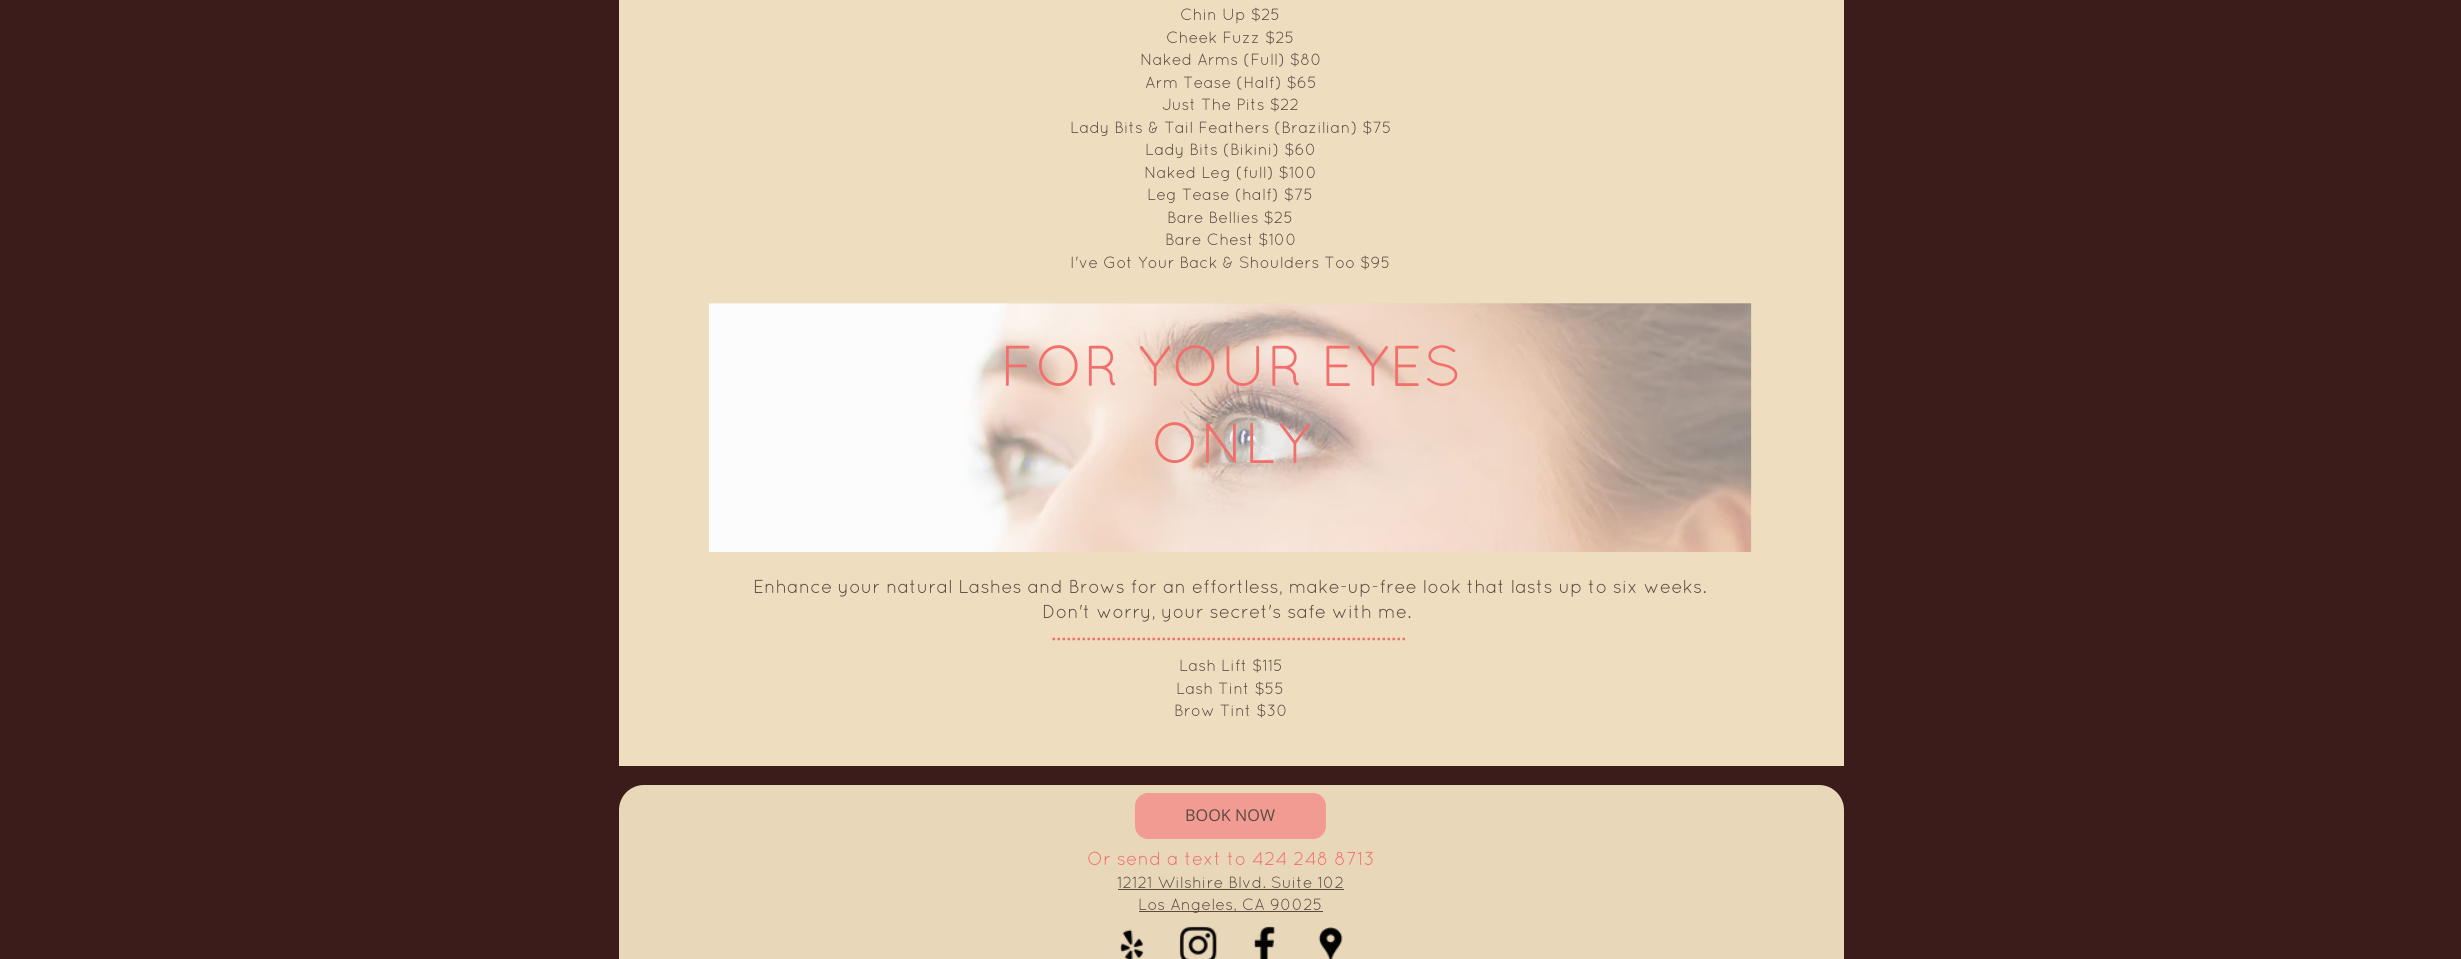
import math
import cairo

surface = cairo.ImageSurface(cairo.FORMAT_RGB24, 2461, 959)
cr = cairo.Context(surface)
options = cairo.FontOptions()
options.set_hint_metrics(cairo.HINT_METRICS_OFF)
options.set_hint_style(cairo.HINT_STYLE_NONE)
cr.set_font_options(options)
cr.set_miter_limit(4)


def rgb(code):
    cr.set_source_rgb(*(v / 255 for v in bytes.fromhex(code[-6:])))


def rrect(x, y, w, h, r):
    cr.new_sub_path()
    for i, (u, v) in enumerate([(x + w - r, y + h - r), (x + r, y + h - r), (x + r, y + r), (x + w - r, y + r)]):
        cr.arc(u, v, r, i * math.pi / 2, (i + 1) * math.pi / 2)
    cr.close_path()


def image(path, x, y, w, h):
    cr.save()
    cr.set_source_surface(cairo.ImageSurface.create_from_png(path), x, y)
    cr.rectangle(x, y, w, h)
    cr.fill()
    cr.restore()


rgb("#3c1c1b")
cr.paint()
rgb("#efddbf")
cr.rectangle(619, 0, 1225, 766)
cr.fill()
image("img/1.png", 708, 303, 1044, 249)
cr.new_path()
cr.move_to(1052.5, 639)
cr.line_to(1407.5, 639)
rgb("#f26f6b")
cr.set_line_width(2.5)
cr.set_dash([2.5, 2.5])
cr.stroke()
rgb("#e9d7b9")
rrect(619, 785, 1225, 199, 25)
cr.fill()
rgb("#f29b92")
rrect(1135, 793, 191, 46, 13)
cr.fill()
rgb("#594a42")
cr.rectangle(1118, 889, 226, 1)
cr.fill()
cr.rectangle(1139, 911, 184, 1)
cr.fill()
image("img/2.png", 1120, 929, 24, 30)
image("img/3.png", 1179, 926, 38, 33)
image("img/4.png", 1253, 926, 23, 33)
image("img/5.png", 1318, 927, 25, 32)
cr.select_font_face("Quicksand")
cr.set_font_size(16.25)
for x, y, s in [
    (1180, 20, "Chin Up $25"),
    (1166, 43, "Cheek Fuzz $25"),
    (1140, 65, "Naked Arms (Full) $80"),
    (1145, 88, "Arm Tease (Half) $65"),
    (1162, 110, "Just The Pits $22"),
    (1070, 133, "Lady Bits & Tail Feathers (Brazilian) $75"),
    (1145, 155, "Lady Bits (Bikini) $60"),
    (1144, 178, "Naked Leg (full) $100"),
    (1147, 200, "Leg Tease (half) $75"),
    (1167, 223, "Bare Bellies $25"),
    (1165, 245, "Bare Chest $100"),
    (1070, 268, "I've Got Your Back & Shoulders Too $95"),
]:
    cr.move_to(x, y)
    cr.show_text(s)
cr.set_font_size(57.5)
rgb("#f26f6b")
cr.move_to(1000, 386)
cr.show_text("FOR YOUR EYES")
cr.move_to(1151, 463)
cr.show_text("ONLY")
cr.set_font_size(18.75)
rgb("#594a42")
cr.move_to(753, 593)
cr.show_text("Enhance your natural Lashes and Brows for an effortless, make-up-free look that lasts up to six weeks.")
cr.move_to(1042, 618)
cr.show_text("Don't worry, your secret's safe with me.")
cr.set_font_size(16.25)
for x, y, s in [
    (1179, 671, "Lash Lift $115"),
    (1176, 694, "Lash Tint $55"),
    (1174, 716, "Brow Tint $30"),
]:
    cr.move_to(x, y)
    cr.show_text(s)
cr.select_font_face("Open Sans")
cr.move_to(1185, 821)
cr.show_text("BOOK NOW")
cr.select_font_face("Quicksand")
cr.set_font_size(18.75)
rgb("#f26f6b")
cr.move_to(1087, 865)
cr.show_text("Or send a text to 424 248 8713")
cr.set_font_size(16.25)
rgb("#594a42")
cr.move_to(1117, 888)
cr.show_text("12121 Wilshire Blvd. Suite 102")
cr.move_to(1138, 910)
cr.show_text("Los Angeles, CA 90025")
surface.write_to_png("page.png")
